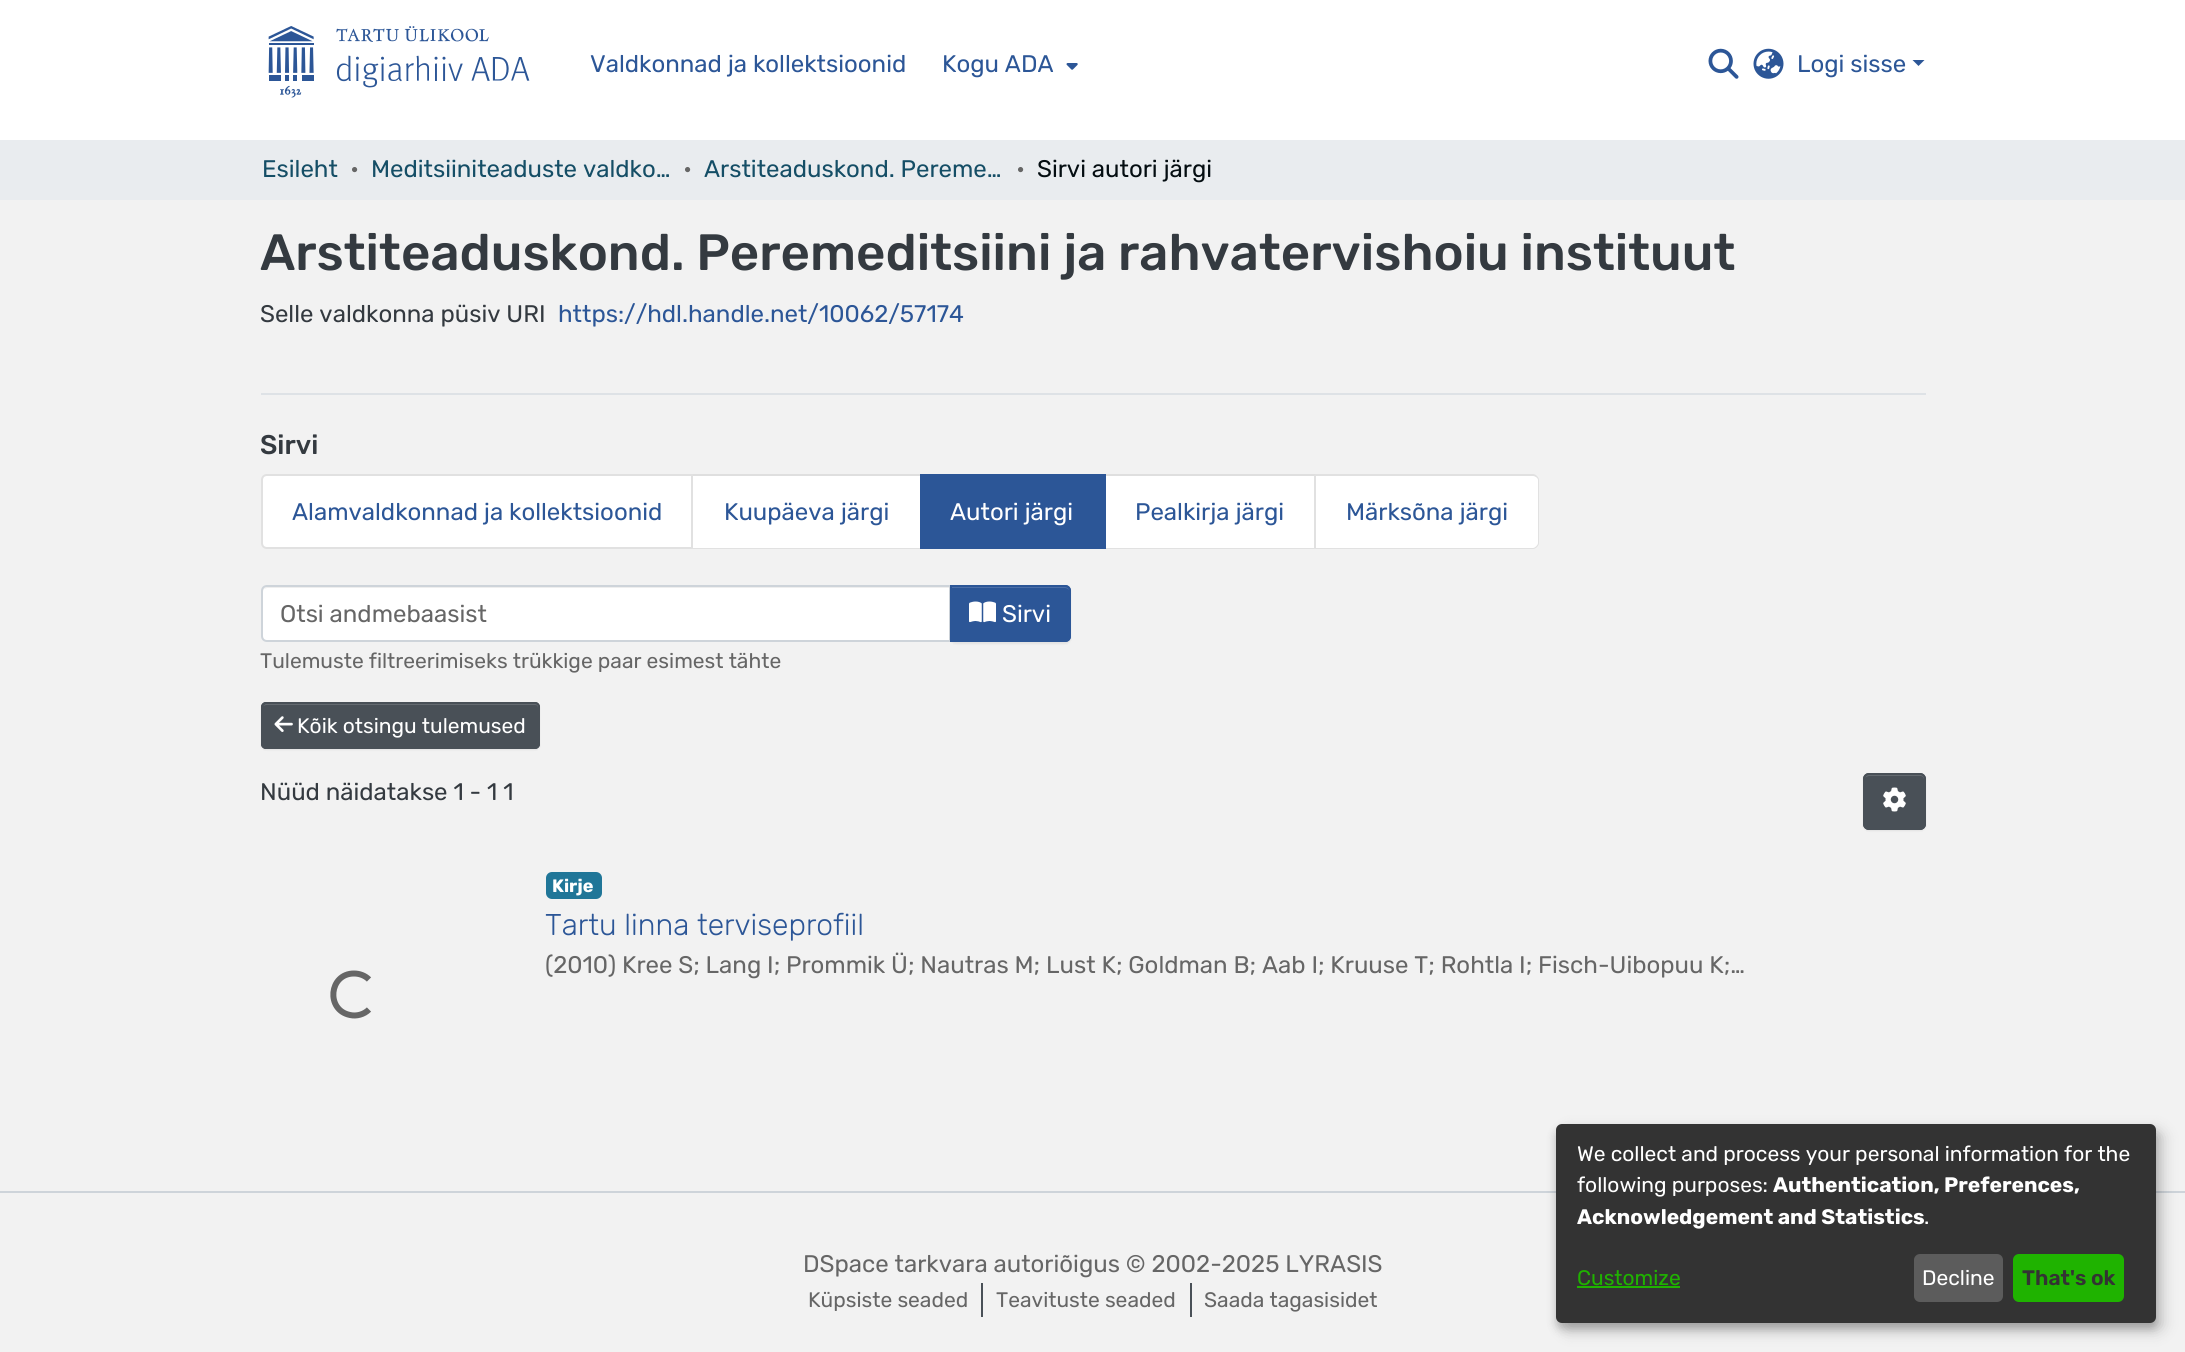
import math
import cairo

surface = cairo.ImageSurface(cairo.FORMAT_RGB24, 2185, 1352)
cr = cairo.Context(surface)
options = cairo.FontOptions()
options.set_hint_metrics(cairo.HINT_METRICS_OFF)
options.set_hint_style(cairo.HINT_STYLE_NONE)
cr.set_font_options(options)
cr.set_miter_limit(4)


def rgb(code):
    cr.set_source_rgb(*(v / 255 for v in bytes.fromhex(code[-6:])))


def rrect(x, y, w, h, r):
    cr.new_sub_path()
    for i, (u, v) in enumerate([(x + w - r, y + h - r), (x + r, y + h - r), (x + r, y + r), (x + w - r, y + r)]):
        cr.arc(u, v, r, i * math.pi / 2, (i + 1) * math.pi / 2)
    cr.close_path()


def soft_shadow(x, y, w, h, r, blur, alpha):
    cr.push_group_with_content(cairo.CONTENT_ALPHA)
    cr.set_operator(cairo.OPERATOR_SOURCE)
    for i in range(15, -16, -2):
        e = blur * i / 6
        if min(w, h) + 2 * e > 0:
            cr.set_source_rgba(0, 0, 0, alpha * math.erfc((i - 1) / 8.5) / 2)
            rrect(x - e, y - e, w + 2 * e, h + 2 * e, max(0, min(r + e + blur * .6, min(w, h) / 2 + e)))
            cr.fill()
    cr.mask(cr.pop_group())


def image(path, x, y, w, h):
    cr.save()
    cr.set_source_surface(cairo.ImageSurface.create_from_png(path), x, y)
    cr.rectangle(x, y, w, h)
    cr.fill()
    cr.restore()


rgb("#f2f2f2")
cr.paint()
rgb("#ffffff")
cr.rectangle(0, 0, 2185, 140)
cr.fill()
image("img/1.png", 268, 26, 262, 72)
image("img/2.png", 1066, 63, 12, 7)
image("img/3.png", 1708, 48, 31, 31)
image("img/4.png", 1753, 48, 31, 31)
rgb("#2c5697")
cr.new_path()
cr.move_to(1912.5, 60)
cr.line_to(1924.5, 60)
cr.line_to(1918.5, 66)
cr.close_path()
cr.fill()
rgb("#e9ecef")
cr.rectangle(0, 140, 2185, 60)
cr.fill()
rgb("#dee2e6")
cr.rectangle(261, 393, 1665, 2)
cr.fill()
rgb("#ffffff")
cr.new_path()
cr.move_to(267, 474)
cr.line_to(693, 474)
cr.line_to(693, 549)
cr.line_to(267, 549)
cr.curve_to(263.5, 549, 261, 546.5, 261, 543)
cr.line_to(261, 480)
cr.curve_to(261, 476.5, 263.5, 474, 267, 474)
cr.close_path()
cr.fill()
cr.new_path()
cr.move_to(267, 475)
cr.line_to(692, 475)
cr.line_to(692, 548)
cr.line_to(267, 548)
cr.curve_to(264, 548, 262, 546, 262, 543)
cr.line_to(262, 480)
cr.curve_to(262, 477, 264, 475, 267, 475)
cr.close_path()
cr.set_source_rgba(0, 0, 0, 0.12)
cr.stroke()
rgb("#ffffff")
cr.rectangle(693, 476, 227, 73)
cr.fill()
rgb("#dfdfdf")
cr.new_path()
cr.move_to(693, 474)
cr.line_to(921, 474)
cr.line_to(920, 476)
cr.line_to(693, 476)
cr.close_path()
cr.fill()
cr.set_source_rgba(0, 0, 0, 0.12)
cr.new_path()
cr.move_to(921, 549)
cr.line_to(693, 549)
cr.line_to(693, 548)
cr.line_to(920, 548)
cr.close_path()
cr.fill()
rgb("#2c5697")
cr.rectangle(920, 474, 186, 75)
cr.fill()
rgb("#ffffff")
cr.rectangle(1106, 474, 210, 75)
cr.fill()
rgb("#dfdfdf")
cr.new_path()
cr.move_to(1106, 474)
cr.line_to(1316, 474)
cr.line_to(1314, 476)
cr.line_to(1106, 476)
cr.close_path()
cr.fill()
cr.set_source_rgba(0, 0, 0, 0.12)
cr.new_path()
cr.move_to(1316, 474)
cr.line_to(1316, 549)
cr.line_to(1314, 548)
cr.line_to(1314, 476)
cr.close_path()
cr.fill()
cr.new_path()
cr.move_to(1316, 549)
cr.line_to(1106, 549)
cr.line_to(1106, 548)
cr.line_to(1314, 548)
cr.close_path()
cr.fill()
rgb("#ffffff")
cr.new_path()
cr.move_to(1316, 474)
cr.line_to(1533, 474)
cr.curve_to(1536.5, 474, 1539, 476.5, 1539, 480)
cr.line_to(1539, 543)
cr.curve_to(1539, 546.5, 1536.5, 549, 1533, 549)
cr.line_to(1316, 549)
cr.close_path()
cr.fill()
cr.set_source_rgba(0, 0, 0, 0.12)
cr.set_fill_rule(cairo.FILL_RULE_EVEN_ODD)
cr.new_path()
cr.move_to(1316, 474)
cr.line_to(1533, 474)
cr.curve_to(1536, 474, 1539, 477, 1539, 480)
cr.line_to(1539, 543)
cr.curve_to(1539, 546, 1536, 549, 1533, 549)
cr.line_to(1316, 549)
cr.close_path()
cr.move_to(1316, 476)
cr.line_to(1533, 476)
cr.curve_to(1535, 476, 1538, 478, 1538, 480)
cr.line_to(1538, 543)
cr.curve_to(1538, 545, 1535, 548, 1533, 548)
cr.line_to(1316, 548)
cr.close_path()
cr.fill()
rgb("#ffffff")
cr.new_path()
cr.move_to(268, 587)
cr.line_to(950, 587)
cr.line_to(950, 641)
cr.line_to(268, 641)
cr.curve_to(265, 641, 263, 639, 263, 636)
cr.line_to(263, 592)
cr.curve_to(263, 589, 265, 587, 268, 587)
cr.close_path()
cr.fill()
cr.set_source_rgba(0, 0, 0, 0.07)
cr.set_fill_rule(cairo.FILL_RULE_WINDING)
cr.new_path()
cr.move_to(267, 588)
cr.line_to(950, 588)
cr.line_to(950, 587)
cr.line_to(268, 587)
cr.curve_to(266, 587, 265, 588, 264, 589)
cr.close_path()
cr.fill()
cr.new_path()
cr.move_to(267, 586)
cr.line_to(950, 586)
cr.line_to(950, 641)
cr.line_to(267, 641)
cr.curve_to(264, 641, 262, 639, 262, 636)
cr.line_to(262, 591)
cr.curve_to(262, 588, 264, 586, 267, 586)
cr.close_path()
rgb("#ced4da")
cr.stroke()
rgb("#000000")
soft_shadow(950, 587, 121, 57, 6, 1, 0.07)
rgb("#2c5697")
cr.new_path()
cr.move_to(950, 585)
cr.line_to(1065, 585)
cr.curve_to(1068.5, 585, 1071, 587.5, 1071, 591)
cr.line_to(1071, 636)
cr.curve_to(1071, 639.5, 1068.5, 642, 1065, 642)
cr.line_to(950, 642)
cr.close_path()
cr.fill()
rgb("#4c6fa7")
cr.new_path()
cr.move_to(951, 588)
cr.line_to(1065, 588)
cr.curve_to(1067, 588, 1070, 590, 1070, 592)
cr.curve_to(1070, 589, 1068, 587, 1065, 587)
cr.line_to(951, 587)
cr.close_path()
cr.fill()
cr.new_path()
cr.move_to(951, 586)
cr.line_to(1065, 586)
cr.curve_to(1068, 586, 1070, 588, 1070, 591)
cr.line_to(1070, 636)
cr.curve_to(1070, 639, 1068, 641, 1065, 641)
cr.line_to(951, 641)
cr.close_path()
rgb("#2c5697")
cr.stroke()
image("img/5.png", 969, 601, 27, 22)
rgb("#000000")
soft_shadow(261, 704, 279, 46, 5, 1, 0.07)
rgb("#495057")
rrect(261, 702, 279, 47, 5)
cr.fill()
rgb("#646a70")
cr.new_path()
cr.move_to(266, 705)
cr.line_to(535, 705)
cr.curve_to(537, 705, 538, 706, 538, 708)
cr.line_to(538, 746)
cr.curve_to(539, 746, 539, 745, 539, 744)
cr.line_to(539, 707)
cr.curve_to(539, 705, 538, 704, 536, 704)
cr.line_to(266, 704)
cr.curve_to(265, 704, 264, 705, 263, 706)
cr.close_path()
cr.fill()
rrect(262, 703, 277, 45, 4)
rgb("#495057")
cr.stroke()
image("img/6.png", 274, 716, 19, 16)
rgb("#000000")
soft_shadow(1863, 774, 63, 57, 6, 1, 0.07)
rgb("#495057")
rrect(1863, 773, 63, 57, 6)
cr.fill()
rgb("#646a70")
cr.new_path()
cr.move_to(1869, 776)
cr.line_to(1921, 776)
cr.curve_to(1926, 777, 1924, 785, 1924, 788)
cr.line_to(1924, 826)
cr.curve_to(1925, 825, 1925, 824, 1925, 823)
cr.line_to(1925, 779)
cr.curve_to(1925, 776, 1923, 774, 1920, 774)
cr.line_to(1870, 774)
cr.curve_to(1868, 774, 1866, 776, 1865, 778)
cr.curve_to(1866, 777, 1868, 776, 1869, 776)
cr.close_path()
cr.fill()
rrect(1864, 774, 61, 55, 5)
rgb("#495057")
cr.stroke()
image("img/7.png", 1883, 787, 23, 25)
rgb("#207698")
rrect(546, 872, 56, 27, 6)
cr.fill()
cr.new_path()
cr.move_to(369, 1009.5)
cr.curve_to(364, 1014.5, 356.5, 1016.5, 350, 1015)
cr.curve_to(325.5, 1010, 329, 973.5, 354, 973.5)
cr.curve_to(359.5, 973.5, 365, 975.5, 369, 979.5)
rgb("#666666")
cr.set_line_width(6)
cr.stroke()
for x, y, w, h, color in [
    (0, 1191, 2185, 2, "#ced4da"),
    (981, 1283, 2, 34, "#495057"),
    (1190, 1283, 2, 34, "#495057"),
]:
    rgb(color)
    cr.rectangle(x, y, w, h)
    cr.fill()
rgb("#000000")
soft_shadow(1563, 1131, 600, 200, 6, 7.5, 0.19)
soft_shadow(1556, 1130, 600, 199, 6, 4.5, 0.2)
rgb("#333333")
rrect(1556, 1124, 600, 199, 6)
cr.fill()
rgb("#1fb300")
cr.rectangle(1577, 1286, 103, 2)
cr.fill()
rgb("#5c5c5c")
rrect(1914, 1254, 89, 48, 6)
cr.fill()
rgb("#1fb300")
rrect(2013, 1254, 111, 48, 6)
cr.fill()
cr.select_font_face("Rubik")
cr.set_font_size(24)
rgb("#2c5697")
for x, y, s in [
    (590, 72, "Valdkonnad ja kollektsioonid"),
    (942, 72, "Kogu ADA"),
    (1797, 72, "Logi sisse"),
]:
    cr.move_to(x, y)
    cr.show_text(s)
rgb("#154e66")
cr.move_to(262, 177)
cr.show_text("Esileht")
rgb("#666666")
cr.move_to(350, 177)
cr.show_text("•")
rgb("#154e66")
cr.move_to(371, 177)
cr.show_text("Meditsiiniteaduste valdko…")
rgb("#666666")
cr.move_to(683, 177)
cr.show_text("•")
rgb("#154e66")
cr.move_to(704, 177)
cr.show_text("Arstiteaduskond. Pereme…")
rgb("#666666")
cr.move_to(1016, 177)
cr.show_text("•")
rgb("#040d11")
cr.move_to(1037, 177)
cr.show_text("Sirvi autori järgi")
cr.select_font_face("Rubik Medium")
cr.set_font_size(51)
rgb("#343a40")
cr.move_to(260, 270)
cr.show_text("Arstiteaduskond. Peremeditsiini ja rahvatervishoiu instituut")
cr.select_font_face("Rubik")
cr.set_font_size(24)
cr.move_to(260, 322)
cr.show_text("Selle valdkonna püsiv URI")
rgb("#2c5697")
cr.move_to(558, 322)
cr.show_text("https://hdl.handle.net/10062/57174")
cr.select_font_face("Rubik Medium")
cr.set_font_size(27)
rgb("#343a40")
cr.move_to(260, 454)
cr.show_text("Sirvi")
cr.select_font_face("Rubik")
cr.set_font_size(24)
rgb("#2c5697")
cr.move_to(292, 520)
cr.show_text("Alamvaldkonnad ja kollektsioonid")
cr.move_to(724, 520)
cr.show_text("Kuupäeva järgi")
rgb("#ffffff")
cr.move_to(950, 520)
cr.show_text("Autori järgi")
rgb("#2c5697")
cr.move_to(1135, 520)
cr.show_text("Pealkirja järgi")
cr.move_to(1346, 520)
cr.show_text("Märksõna järgi")
rgb("#666666")
cr.move_to(280, 622)
cr.show_text("Otsi andmebaasist")
rgb("#ffffff")
cr.move_to(1002, 622)
cr.show_text("Sirvi")
cr.set_font_size(21)
rgb("#666666")
cr.move_to(260, 668)
cr.show_text("Tulemuste filtreerimiseks trükkige paar esimest tähte")
rgb("#ffffff")
cr.move_to(297, 733)
cr.show_text("Kõik otsingu tulemused")
cr.set_font_size(24)
rgb("#343a40")
cr.move_to(260, 800)
cr.show_text("Nüüd näidatakse 1 - 1 1")
cr.select_font_face("Rubik", cairo.FONT_SLANT_NORMAL, cairo.FONT_WEIGHT_BOLD)
cr.set_font_size(18)
rgb("#ffffff")
cr.move_to(552, 892)
cr.show_text("Kirje")
cr.select_font_face("Rubik Light")
cr.set_font_size(30)
rgb("#2c5697")
cr.move_to(545, 935)
cr.show_text("Tartu linna terviseprofiil")
cr.select_font_face("Rubik")
cr.set_font_size(24)
rgb("#666666")
cr.move_to(545, 973)
cr.show_text("(2010) Kree S; Lang I; Prommik Ü; Nautras M; Lust K; Goldman B; Aab I; Kruuse T; Rohtla I; Fisch-Uibopuu K;…")
cr.move_to(803, 1272)
cr.show_text("DSpace tarkvara autoriõigus © 2002-2025 LYRASIS")
cr.set_font_size(21)
for x, y, s in [
    (808, 1307, "Küpsiste seaded"),
    (996, 1307, "Teavituste seaded"),
    (1204, 1307, "Saada tagasisidet"),
]:
    cr.move_to(x, y)
    cr.show_text(s)
rgb("#ffffff")
cr.move_to(1577, 1161)
cr.show_text("We collect and process your personal information for the")
cr.move_to(1577, 1192)
cr.show_text("following purposes:")
cr.select_font_face("Rubik", cairo.FONT_SLANT_NORMAL, cairo.FONT_WEIGHT_BOLD)
cr.move_to(1773, 1192)
cr.show_text("Authentication, Preferences,")
cr.move_to(1577, 1224)
cr.show_text("Acknowledgement and Statistics")
cr.select_font_face("Rubik")
cr.move_to(1924, 1224)
cr.show_text(".")
rgb("#1fb300")
cr.move_to(1577, 1285)
cr.show_text("Customize")
rgb("#ffffff")
cr.move_to(1922, 1285)
cr.show_text("Decline")
cr.select_font_face("Rubik SemiBold")
rgb("#333333")
cr.move_to(2022, 1285)
cr.show_text("That's ok")
surface.write_to_png("page.png")
